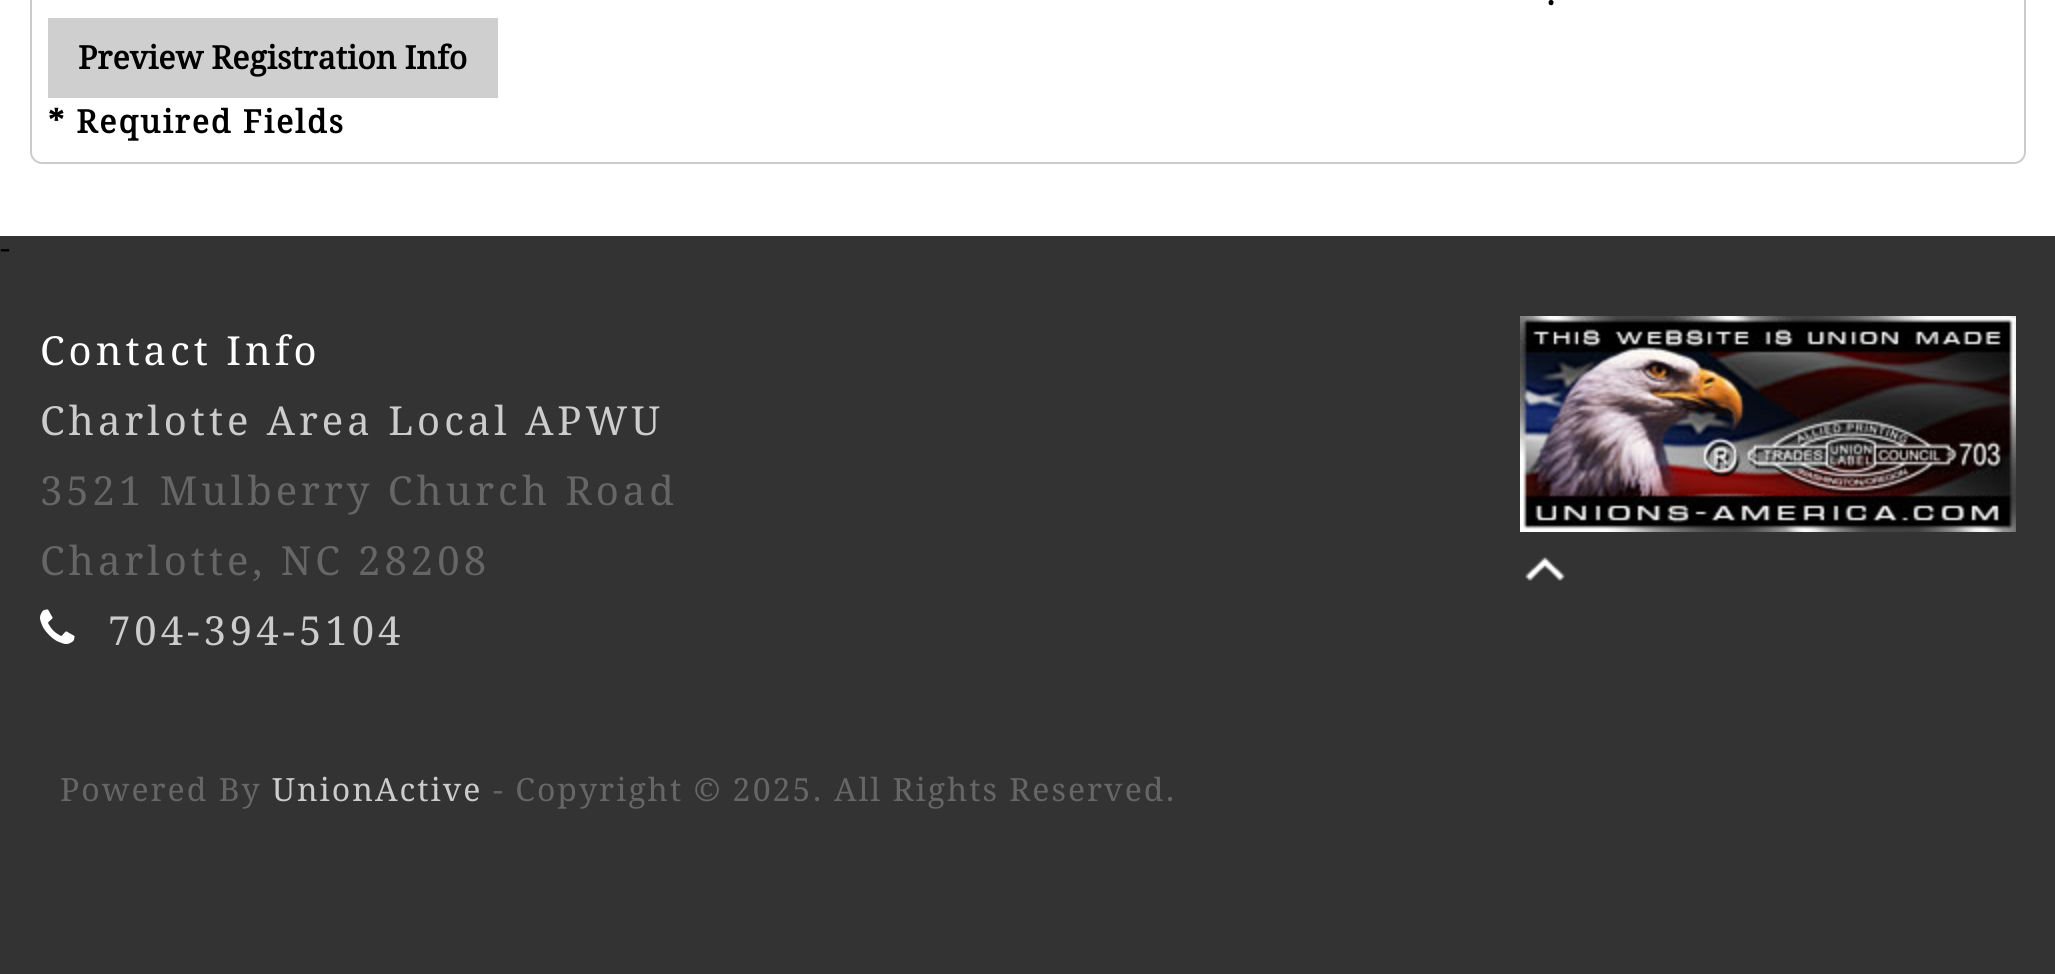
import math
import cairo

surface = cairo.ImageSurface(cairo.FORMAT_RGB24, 2055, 974)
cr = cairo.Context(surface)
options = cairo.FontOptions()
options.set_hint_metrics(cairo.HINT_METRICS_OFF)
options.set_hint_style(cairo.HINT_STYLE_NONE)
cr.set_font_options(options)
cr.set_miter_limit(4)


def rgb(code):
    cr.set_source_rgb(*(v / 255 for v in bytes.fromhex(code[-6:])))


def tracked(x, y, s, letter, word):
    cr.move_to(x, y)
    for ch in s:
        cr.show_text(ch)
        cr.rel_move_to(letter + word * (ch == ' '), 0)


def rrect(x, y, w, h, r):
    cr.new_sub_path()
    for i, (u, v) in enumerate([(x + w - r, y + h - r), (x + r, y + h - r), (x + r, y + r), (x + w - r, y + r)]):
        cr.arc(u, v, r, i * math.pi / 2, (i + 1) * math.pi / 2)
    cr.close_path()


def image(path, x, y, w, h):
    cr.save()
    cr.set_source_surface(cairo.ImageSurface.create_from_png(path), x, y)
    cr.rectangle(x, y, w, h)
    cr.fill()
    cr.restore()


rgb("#ffffff")
cr.paint()
rgb("#333333")
cr.rectangle(0, 236, 2055, 738)
cr.fill()
rrect(31, -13, 1994, 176, 11)
rgb("#cccccc")
cr.stroke()
rgb("#d0cfcf")
cr.rectangle(48, 18, 450, 80)
cr.fill()
image("img/1.png", 40, 609, 35, 35)
image("img/2.png", 1520, 316, 496, 216)
image("img/3.png", 1525, 557, 40, 24)
cr.select_font_face("Droid Serif", cairo.FONT_SLANT_NORMAL, cairo.FONT_WEIGHT_BOLD)
cr.set_font_size(32)
rgb("#000000")
tracked(1546, 5, ".", 2, 0)
cr.move_to(78, 69)
cr.show_text("Preview Registration Info")
tracked(48, 133, "* Required Fields", 2, 0)
cr.select_font_face("Droid Serif")
tracked(0, 259, "-", 2, 0)
cr.set_font_size(40)
rgb("#ffffff")
tracked(40, 365, "Contact Info", 4, 0)
rgb("#cccccc")
tracked(40, 435, "Charlotte Area Local APWU", 4, 0)
rgb("#666666")
tracked(40, 505, "3521 Mulberry Church Road", 4, 0)
tracked(40, 575, "Charlotte, NC 28208", 4, 0)
rgb("#cccccc")
tracked(108, 645, "704-394-5104", 4, 0)
cr.set_font_size(32)
rgb("#666666")
tracked(60, 801, "Powered By", 2, 0)
rgb("#cccccc")
tracked(272, 801, "UnionActive", 2, 0)
rgb("#666666")
tracked(493, 801, "- Copyright © 2025. All Rights Reserved.", 2, 0)
surface.write_to_png("page.png")
